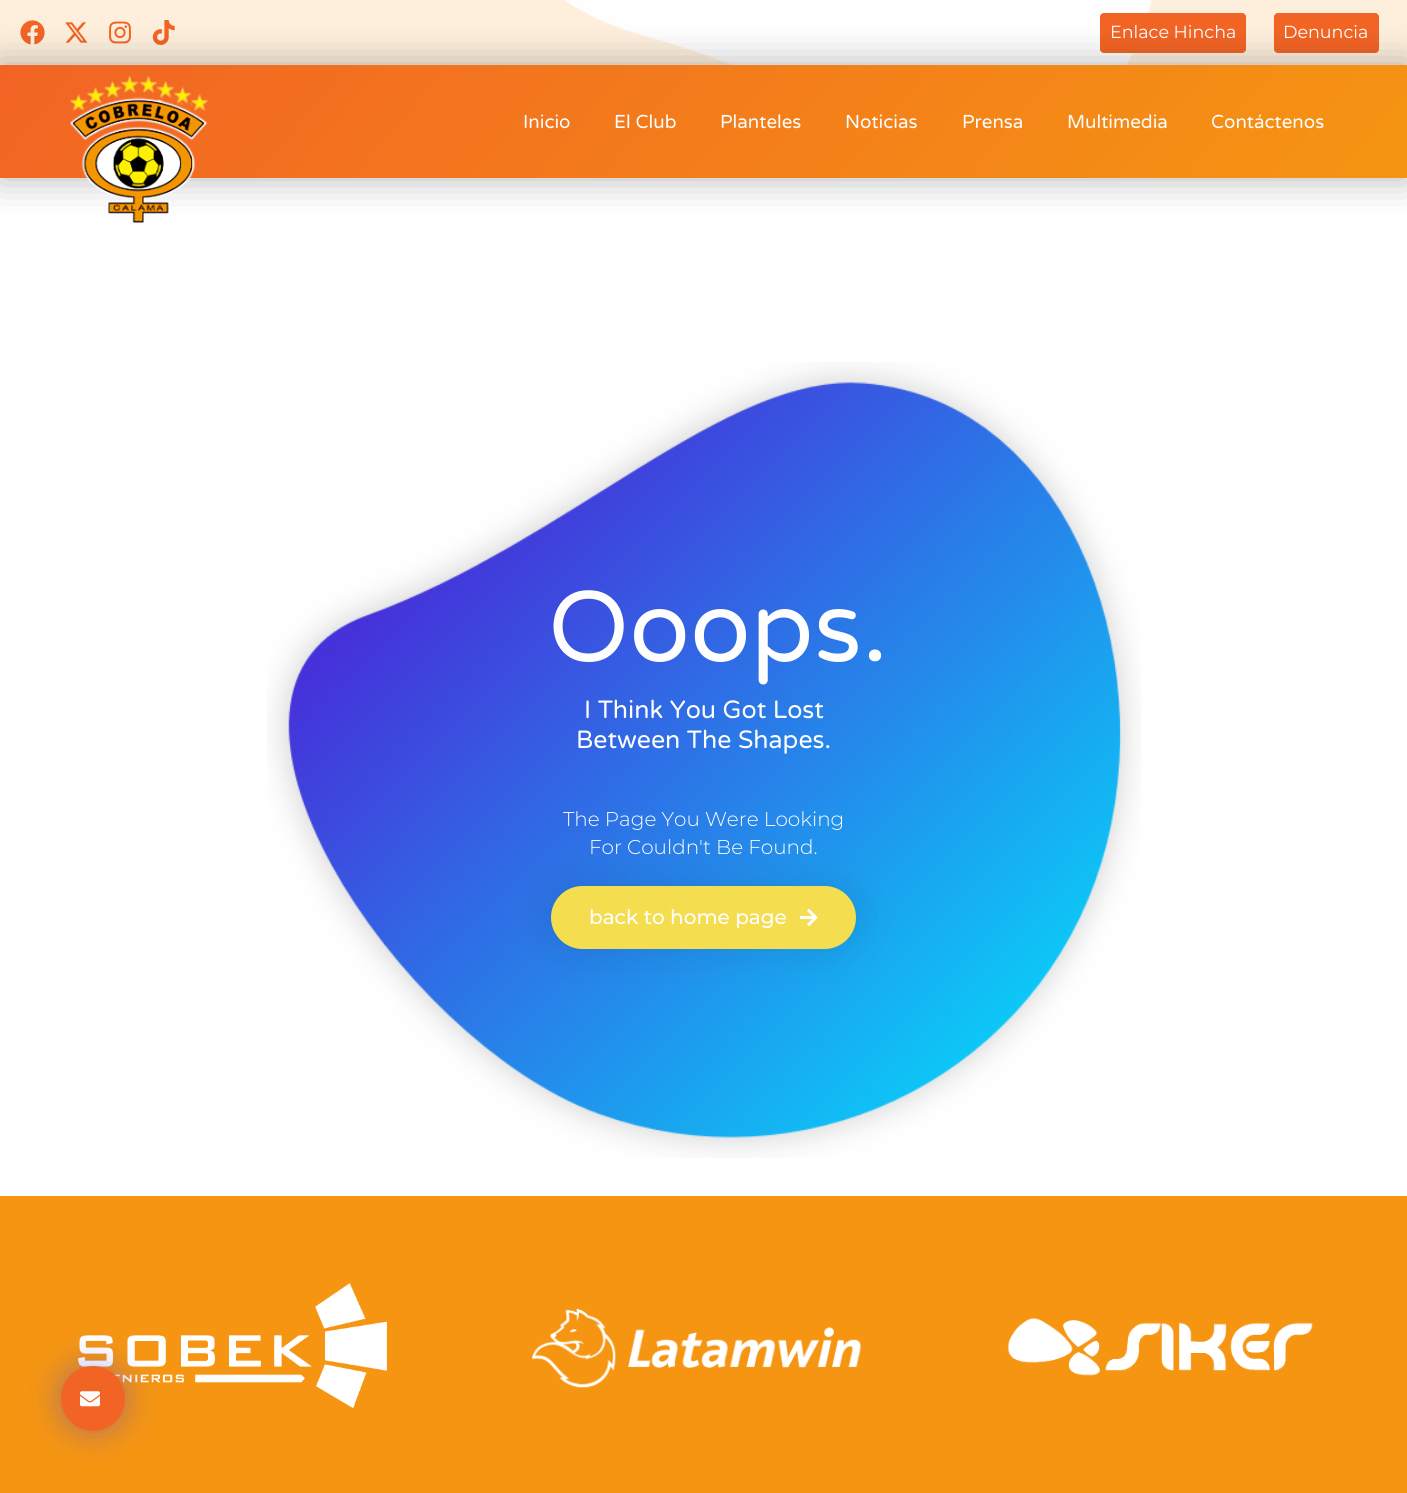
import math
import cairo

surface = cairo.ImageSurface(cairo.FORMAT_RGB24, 1407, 1493)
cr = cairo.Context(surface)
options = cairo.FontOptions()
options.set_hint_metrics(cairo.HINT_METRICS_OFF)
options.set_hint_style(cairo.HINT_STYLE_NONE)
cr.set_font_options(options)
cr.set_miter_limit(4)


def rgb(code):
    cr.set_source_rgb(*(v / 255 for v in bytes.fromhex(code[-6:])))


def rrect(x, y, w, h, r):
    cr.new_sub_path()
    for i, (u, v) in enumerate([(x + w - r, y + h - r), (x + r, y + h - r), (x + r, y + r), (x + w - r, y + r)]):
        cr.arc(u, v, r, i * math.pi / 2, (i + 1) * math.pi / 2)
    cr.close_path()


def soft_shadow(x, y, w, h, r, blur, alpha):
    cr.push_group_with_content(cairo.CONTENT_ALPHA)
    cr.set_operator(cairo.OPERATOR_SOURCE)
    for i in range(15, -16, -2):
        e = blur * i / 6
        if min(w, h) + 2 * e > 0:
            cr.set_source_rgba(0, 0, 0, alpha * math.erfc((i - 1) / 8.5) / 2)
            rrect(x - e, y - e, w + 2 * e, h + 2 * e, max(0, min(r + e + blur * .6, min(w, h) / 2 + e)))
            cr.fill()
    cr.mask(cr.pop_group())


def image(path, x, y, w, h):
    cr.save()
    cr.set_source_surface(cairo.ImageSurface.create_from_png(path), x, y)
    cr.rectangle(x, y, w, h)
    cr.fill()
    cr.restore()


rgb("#ffffff")
cr.paint()
rgb("#feefdd")
cr.rectangle(0, 0, 1407, 65)
cr.fill()
image("img/1.png", 564, 0, 589, 65)
image("img/2.png", 20, 20, 25, 25)
image("img/3.png", 65, 22, 23, 21)
image("img/4.png", 109, 21, 22, 23)
image("img/5.png", 152, 20, 23, 25)
rgb("#f26424")
rrect(1100, 13, 146, 40, 4)
cr.fill()
rrect(1274, 13, 105, 40, 4)
cr.fill()
rgb("#000000")
soft_shadow(0, 65, 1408, 113, 0, 19, 0.3)
gradient = cairo.LinearGradient(263, -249, 1144, 491)
gradient.add_color_stop_rgba(0, 0.949, 0.392, 0.141, 1)
gradient.add_color_stop_rgba(1, 0.961, 0.584, 0.071, 1)
cr.set_source(gradient)
cr.rectangle(0, 65, 1407, 113)
cr.fill()
image("img/6.png", 70, 75, 138, 148)
image("img/7.png", 267, 362, 874, 796)
rgb("#000000")
soft_shadow(551, 886, 305, 63, 31.5, 19, 0.1)
rgb("#f4dd4e")
rrect(551, 886, 305, 63, 31.5)
cr.fill()
image("img/8.png", 800, 909, 18, 17)
rgb("#f59512")
cr.rectangle(0, 1196, 1407, 297)
cr.fill()
image("img/9.png", 78, 1283, 309, 125)
image("img/10.png", 531, 1308, 331, 80)
image("img/11.png", 1007, 1318, 306, 58)
rgb("#3538f0")
soft_shadow(61, 1366, 64, 65, 32, 15.5, 0.35)
rgb("#f26424")
rrect(61, 1366, 64, 65, 32)
cr.fill()
image("img/12.png", 80, 1391, 20, 16)
cr.select_font_face("Montserrat")
cr.set_font_size(17.5)
rgb("#fffefe")
cr.move_to(1110, 38)
cr.show_text("Enlace Hincha")
cr.move_to(1283, 38)
cr.show_text("Denuncia")
cr.select_font_face("Varela Round")
cr.set_font_size(18.75)
for x, y, s in [
    (523, 128, "Inicio"),
    (614, 128, "El Club"),
    (720, 128, "Planteles"),
    (845, 128, "Noticias"),
    (962, 128, "Prensa"),
    (1067, 128, "Multimedia"),
    (1211, 128, "Contáctenos"),
]:
    cr.move_to(x, y)
    cr.show_text(s)
cr.set_font_size(100)
cr.move_to(548, 661)
cr.show_text("Ooops.")
cr.set_font_size(25)
cr.move_to(584, 718)
cr.show_text("I Think You Got Lost")
cr.move_to(576, 748)
cr.show_text("Between The Shapes.")
cr.select_font_face("Montserrat Light")
cr.set_font_size(20)
cr.move_to(563, 826)
cr.show_text("The Page You Were Looking")
cr.move_to(589, 854)
cr.show_text("For Couldn't Be Found.")
cr.select_font_face("Montserrat Medium")
cr.move_to(589, 924)
cr.show_text("back to home page")
surface.write_to_png("page.png")
